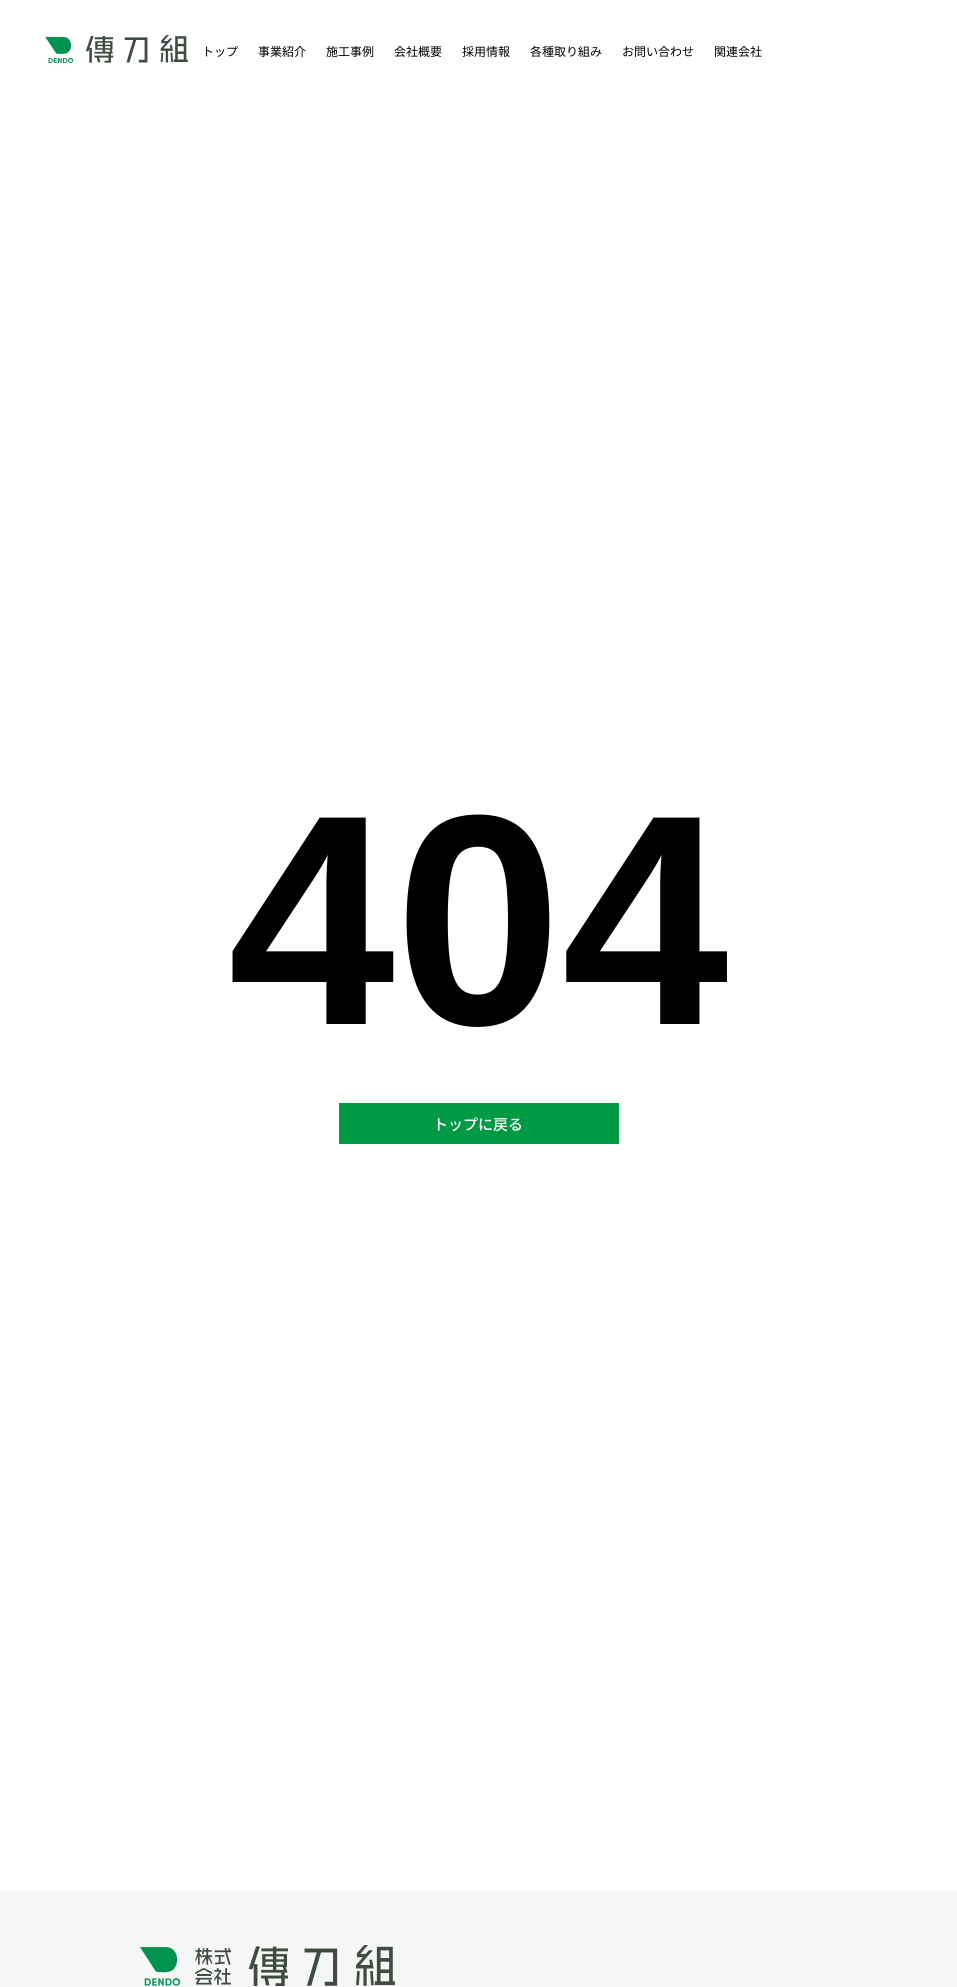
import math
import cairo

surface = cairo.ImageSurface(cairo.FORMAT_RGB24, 957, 1987)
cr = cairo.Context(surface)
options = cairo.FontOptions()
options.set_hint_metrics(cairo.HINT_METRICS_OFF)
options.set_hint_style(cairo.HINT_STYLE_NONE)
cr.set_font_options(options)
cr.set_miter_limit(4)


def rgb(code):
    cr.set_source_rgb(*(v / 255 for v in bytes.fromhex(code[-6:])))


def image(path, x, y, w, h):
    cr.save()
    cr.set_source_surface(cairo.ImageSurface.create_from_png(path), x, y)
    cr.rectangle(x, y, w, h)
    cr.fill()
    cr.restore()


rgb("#ffffff")
cr.paint()
image("img/1.png", 45, 35, 143, 28)
rgb("#009944")
cr.rectangle(339, 1103, 280, 41)
cr.fill()
rgb("#f6f6f6")
cr.rectangle(0, 1891, 957, 96)
cr.fill()
image("img/2.png", 140, 1945, 255, 41)
cr.select_font_face("Noto Sans JP")
cr.set_font_size(12)
rgb("#000000")
for x, y, s in [
    (202, 56, "トップ"),
    (258, 56, "事業紹介"),
    (326, 56, "施工事例"),
    (394, 56, "会社概要"),
    (462, 56, "採用情報"),
    (530, 56, "各種取り組み"),
    (622, 56, "お問い合わせ"),
    (714, 56, "関連会社"),
]:
    cr.move_to(x, y)
    cr.show_text(s)
cr.select_font_face("Liberation Sans", cairo.FONT_SLANT_NORMAL, cairo.FONT_WEIGHT_BOLD)
cr.set_font_size(300)
cr.move_to(228, 1024)
cr.show_text("404")
cr.select_font_face("Noto Sans JP Medium")
cr.set_font_size(15)
rgb("#ffffff")
cr.move_to(433, 1130)
cr.show_text("トップに戻る")
surface.write_to_png("page.png")
